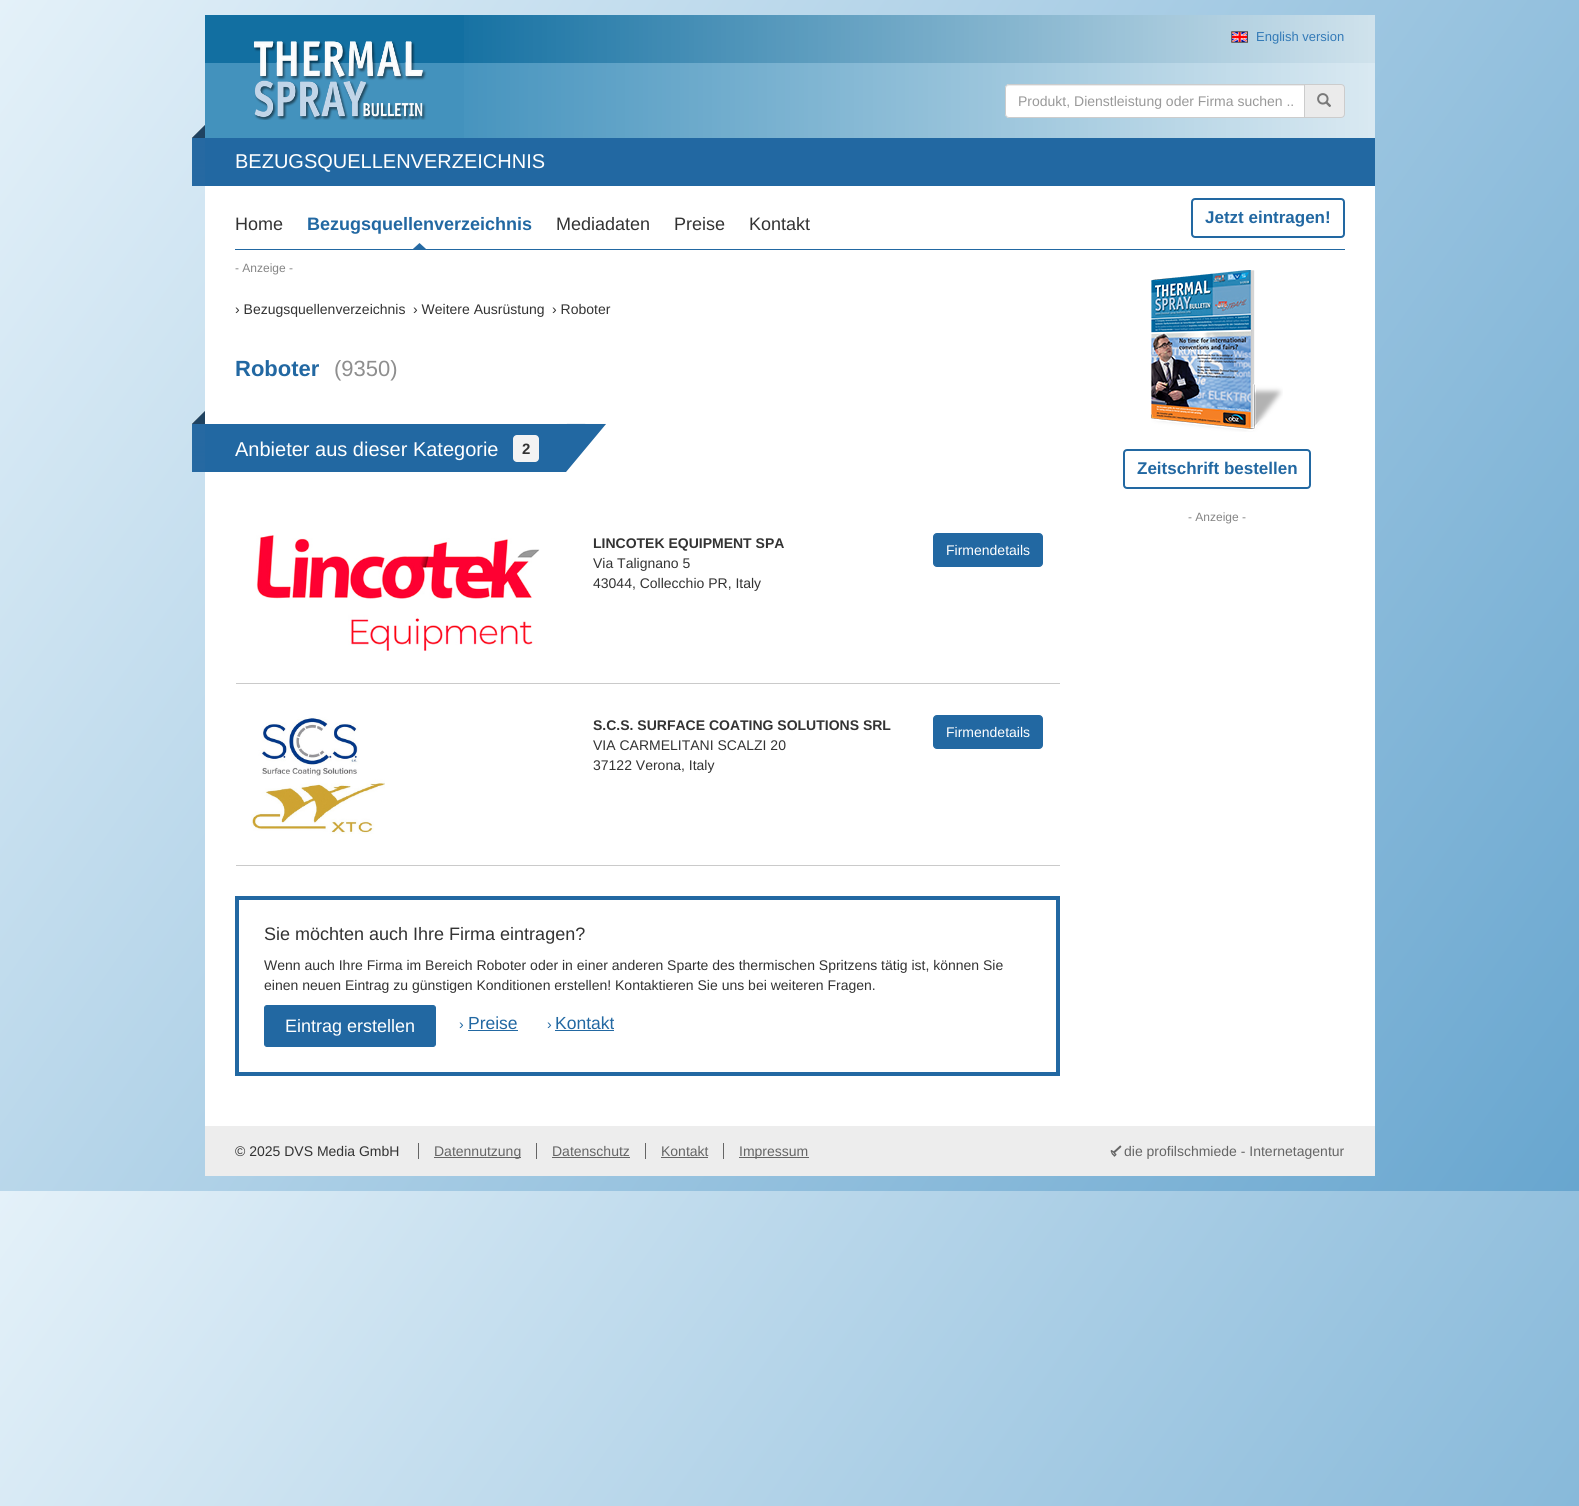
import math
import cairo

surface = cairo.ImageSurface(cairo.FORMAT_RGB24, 1579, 1506)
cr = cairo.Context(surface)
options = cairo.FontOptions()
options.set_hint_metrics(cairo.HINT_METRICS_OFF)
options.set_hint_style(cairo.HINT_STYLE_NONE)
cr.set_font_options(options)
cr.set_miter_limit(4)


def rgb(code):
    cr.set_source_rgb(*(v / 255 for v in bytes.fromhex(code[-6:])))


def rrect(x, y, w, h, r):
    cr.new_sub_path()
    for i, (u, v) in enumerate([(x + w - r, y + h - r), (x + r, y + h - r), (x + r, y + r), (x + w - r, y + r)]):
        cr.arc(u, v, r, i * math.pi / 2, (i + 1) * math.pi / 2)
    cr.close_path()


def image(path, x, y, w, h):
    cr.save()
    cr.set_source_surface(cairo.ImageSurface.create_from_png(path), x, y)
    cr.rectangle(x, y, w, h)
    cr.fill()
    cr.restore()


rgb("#ffffff")
cr.paint()
gradient = cairo.LinearGradient(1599, 1162, -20, 29)
gradient.add_color_stop_rgba(0, 0.408, 0.651, 0.812, 1)
gradient.add_color_stop_rgba(1, 0.894, 0.945, 0.976, 1)
cr.set_source(gradient)
cr.rectangle(0, 0, 1579, 1191)
cr.fill()
gradient = cairo.LinearGradient(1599, 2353, -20, 1220)
gradient.add_color_stop_rgba(0, 0.408, 0.651, 0.812, 1)
gradient.add_color_stop_rgba(1, 0.894, 0.945, 0.976, 1)
cr.set_source(gradient)
cr.rectangle(0, 1191, 1579, 315)
cr.fill()
rgb("#126fa1")
cr.rectangle(205, 15, 1170, 48)
cr.fill()
rgb("#4392bd")
cr.rectangle(205, 63, 1170, 75)
cr.fill()
gradient = cairo.LinearGradient(1375, 101, 205, 100)
gradient.add_color_stop_rgba(0, 1, 1, 1, 0.8)
gradient.add_color_stop_rgba(0.8, 1, 1, 1, 0)
gradient.add_color_stop_rgba(1, 1, 1, 1, 0)
cr.set_source(gradient)
cr.rectangle(464, 15, 911, 123)
cr.fill()
image("img/1.png", 1231, 31, 17, 12)
image("img/2.png", 253, 41, 174, 79)
rgb("#ffffff")
cr.new_path()
cr.move_to(1009, 84)
cr.line_to(1305, 84)
cr.line_to(1305, 118)
cr.line_to(1009, 118)
cr.curve_to(1007, 118, 1005, 116, 1005, 114)
cr.line_to(1005, 88)
cr.curve_to(1005, 86, 1007, 84, 1009, 84)
cr.close_path()
cr.fill()
rgb("#ececec")
cr.new_path()
cr.move_to(1009, 86)
cr.line_to(1304, 86)
cr.line_to(1304, 85)
cr.line_to(1009, 85)
cr.curve_to(1007, 85, 1006, 87, 1006, 89)
cr.curve_to(1006, 87, 1007, 86, 1009, 86)
cr.close_path()
cr.fill()
cr.new_path()
cr.move_to(1009, 84.5)
cr.line_to(1304.5, 84.5)
cr.line_to(1304.5, 117.5)
cr.line_to(1009, 117.5)
cr.curve_to(1007, 117.5, 1005.5, 116, 1005.5, 114)
cr.line_to(1005.5, 88)
cr.curve_to(1005.5, 86, 1007, 84.5, 1009, 84.5)
cr.close_path()
rgb("#cccccc")
cr.set_line_width(1)
cr.stroke()
rgb("#ebebeb")
cr.new_path()
cr.move_to(1304.5, 84.5)
cr.line_to(1341, 84.5)
cr.curve_to(1343, 84.5, 1344.5, 86, 1344.5, 88)
cr.line_to(1344.5, 114)
cr.curve_to(1344.5, 116, 1343, 117.5, 1341, 117.5)
cr.line_to(1304.5, 117.5)
cr.close_path()
cr.fill_preserve()
rgb("#cccccc")
cr.stroke()
image("img/3.png", 1317, 93, 14, 14)
image("img/4.png", 192, 125, 13, 61)
for x, y, w, h, color in [
    (205, 138, 1170, 48, "#2268a2"),
    (205, 186, 1170, 940, "#ffffff"),
    (235, 249, 1110, 1, "#2268a2"),
]:
    rgb(color)
    cr.rectangle(x, y, w, h)
    cr.fill()
image("img/5.png", 413, 243, 13, 6)
rrect(1192, 199, 152, 38, 3)
cr.set_line_width(2)
cr.stroke()
image("img/6.png", 192, 411, 13, 61)
cr.rectangle(205, 424, 354, 48)
cr.fill()
rgb("#f3f3f3")
rrect(513, 435, 26, 27, 4)
cr.fill()
image("img/7.png", 559, 423, 47, 49)
rgb("#cacaca")
cr.rectangle(235, 683, 825, 1)
cr.fill()
rgb("#ffffff")
cr.rectangle(235, 683, 1, 1)
cr.fill()
image("img/8.png", 256, 535, 284, 116)
rgb("#2268a2")
rrect(933.5, 533.5, 109, 33, 3.5)
cr.fill_preserve()
cr.set_line_width(1)
cr.stroke()
rgb("#cacaca")
cr.rectangle(235, 865, 825, 1)
cr.fill()
rgb("#ffffff")
cr.rectangle(235, 865, 1, 1)
cr.fill()
image("img/9.png", 251, 717, 134, 117)
rgb("#2268a2")
rrect(933.5, 715.5, 109, 33, 3.5)
cr.fill_preserve()
cr.stroke()
cr.rectangle(237, 898, 821, 176)
cr.set_line_width(4)
cr.stroke()
rrect(264.5, 1005.5, 171, 41, 2.5)
cr.fill_preserve()
cr.set_line_width(1)
cr.stroke()
cr.rectangle(468, 1030, 50, 1)
cr.fill()
cr.rectangle(555, 1030, 59, 1)
cr.fill()
image("img/10.png", 1151, 270, 132, 162)
rrect(1124, 450, 186, 38, 3)
cr.set_line_width(2)
cr.stroke()
for x, y, w, h, color in [
    (205, 1126, 1170, 50, "#ededed"),
    (418, 1143, 1, 16, "#656565"),
    (434, 1157, 87, 1, "#656565"),
    (536, 1143, 1, 16, "#656565"),
    (552, 1157, 78, 1, "#656565"),
    (645, 1143, 1, 16, "#656565"),
    (661, 1157, 47, 1, "#656565"),
    (723, 1143, 1, 16, "#656565"),
    (739, 1157, 70, 1, "#656565"),
]:
    rgb(color)
    cr.rectangle(x, y, w, h)
    cr.fill()
image("img/11.png", 1110, 1145, 12, 12)
cr.select_font_face("Liberation Sans")
cr.set_font_size(13)
rgb("#337ab7")
cr.move_to(1256, 41)
cr.show_text("English version")
cr.set_font_size(14)
rgb("#999999")
cr.move_to(1018, 106)
cr.show_text("Produkt, Dienstleistung oder Firma suchen ..")
cr.set_font_size(20)
rgb("#ffffff")
cr.move_to(235, 168)
cr.show_text("BEZUGSQUELLENVERZEICHNIS")
cr.set_font_size(18)
rgb("#333333")
cr.move_to(235, 230)
cr.show_text("Home")
cr.select_font_face("Liberation Sans", cairo.FONT_SLANT_NORMAL, cairo.FONT_WEIGHT_BOLD)
rgb("#2268a2")
cr.move_to(307, 230)
cr.show_text("Bezugsquellenverzeichnis")
cr.select_font_face("Liberation Sans")
rgb("#333333")
for x, y, s in [
    (556, 230, "Mediadaten"),
    (674, 230, "Preise"),
    (749, 230, "Kontakt"),
]:
    cr.move_to(x, y)
    cr.show_text(s)
cr.select_font_face("Liberation Sans", cairo.FONT_SLANT_NORMAL, cairo.FONT_WEIGHT_BOLD)
cr.set_font_size(17)
rgb("#2268a2")
cr.move_to(1205, 223)
cr.show_text("Jetzt eintragen!")
cr.select_font_face("Liberation Sans")
cr.set_font_size(12)
rgb("#858585")
cr.move_to(235, 272)
cr.show_text("- Anzeige -")
cr.set_font_size(14)
rgb("#333333")
for x, y, s in [
    (235, 314, "› Bezugsquellenverzeichnis"),
    (413, 314, "› Weitere Ausrüstung"),
    (552, 314, "› Roboter"),
]:
    cr.move_to(x, y)
    cr.show_text(s)
cr.select_font_face("Liberation Sans", cairo.FONT_SLANT_NORMAL, cairo.FONT_WEIGHT_BOLD)
cr.set_font_size(22)
rgb("#2268a2")
cr.move_to(235, 376)
cr.show_text("Roboter")
cr.select_font_face("Liberation Sans")
rgb("#8e8e8e")
cr.move_to(334, 376)
cr.show_text("(9350)")
cr.set_font_size(20)
rgb("#ffffff")
cr.move_to(235, 456)
cr.show_text("Anbieter aus dieser Kategorie")
cr.select_font_face("Liberation Sans", cairo.FONT_SLANT_NORMAL, cairo.FONT_WEIGHT_BOLD)
cr.set_font_size(15)
rgb("#333333")
cr.move_to(522, 454)
cr.show_text("2")
cr.set_font_size(14)
cr.move_to(593, 548)
cr.show_text("LINCOTEK EQUIPMENT SPA")
cr.select_font_face("Liberation Sans")
cr.move_to(593, 568)
cr.show_text("Via Talignano 5")
cr.move_to(593, 588)
cr.show_text("43044, Collecchio PR, Italy")
rgb("#ffffff")
cr.move_to(946, 555)
cr.show_text("Firmendetails")
cr.select_font_face("Liberation Sans", cairo.FONT_SLANT_NORMAL, cairo.FONT_WEIGHT_BOLD)
rgb("#333333")
cr.move_to(593, 730)
cr.show_text("S.C.S. SURFACE COATING SOLUTIONS SRL")
cr.select_font_face("Liberation Sans")
cr.move_to(593, 750)
cr.show_text("VIA CARMELITANI SCALZI 20")
cr.move_to(593, 770)
cr.show_text("37122 Verona, Italy")
rgb("#ffffff")
cr.move_to(946, 737)
cr.show_text("Firmendetails")
cr.set_font_size(18)
rgb("#333333")
cr.move_to(264, 940)
cr.show_text("Sie möchten auch Ihre Firma eintragen?")
cr.set_font_size(14)
cr.move_to(264, 970)
cr.show_text("Wenn auch Ihre Firma im Bereich Roboter oder in einer anderen Sparte des thermischen Spritzens tätig ist, können Sie")
cr.move_to(264, 990)
cr.show_text("einen neuen Eintrag zu günstigen Konditionen erstellen! Kontaktieren Sie uns bei weiteren Fragen.")
cr.set_font_size(18)
rgb("#ffffff")
cr.move_to(285, 1032)
cr.show_text("Eintrag erstellen")
cr.set_font_size(14)
rgb("#2268a2")
cr.move_to(459, 1029)
cr.show_text("›")
cr.set_font_size(17.5)
cr.move_to(468, 1029)
cr.show_text("Preise")
cr.set_font_size(14)
cr.move_to(547, 1029)
cr.show_text("›")
cr.set_font_size(17.5)
cr.move_to(555, 1029)
cr.show_text("Kontakt")
cr.select_font_face("Liberation Sans", cairo.FONT_SLANT_NORMAL, cairo.FONT_WEIGHT_BOLD)
cr.set_font_size(17)
cr.move_to(1137, 474)
cr.show_text("Zeitschrift bestellen")
cr.select_font_face("Liberation Sans")
cr.set_font_size(12)
rgb("#858585")
cr.move_to(1188, 521)
cr.show_text("- Anzeige -")
cr.set_font_size(14)
rgb("#333333")
cr.move_to(235, 1156)
cr.show_text("© 2025 DVS Media GmbH")
rgb("#656565")
for x, y, s in [
    (434, 1156, "Datennutzung"),
    (552, 1156, "Datenschutz"),
    (661, 1156, "Kontakt"),
    (739, 1156, "Impressum"),
    (1124, 1156, "die profilschmiede - Internetagentur"),
]:
    cr.move_to(x, y)
    cr.show_text(s)
surface.write_to_png("page.png")
